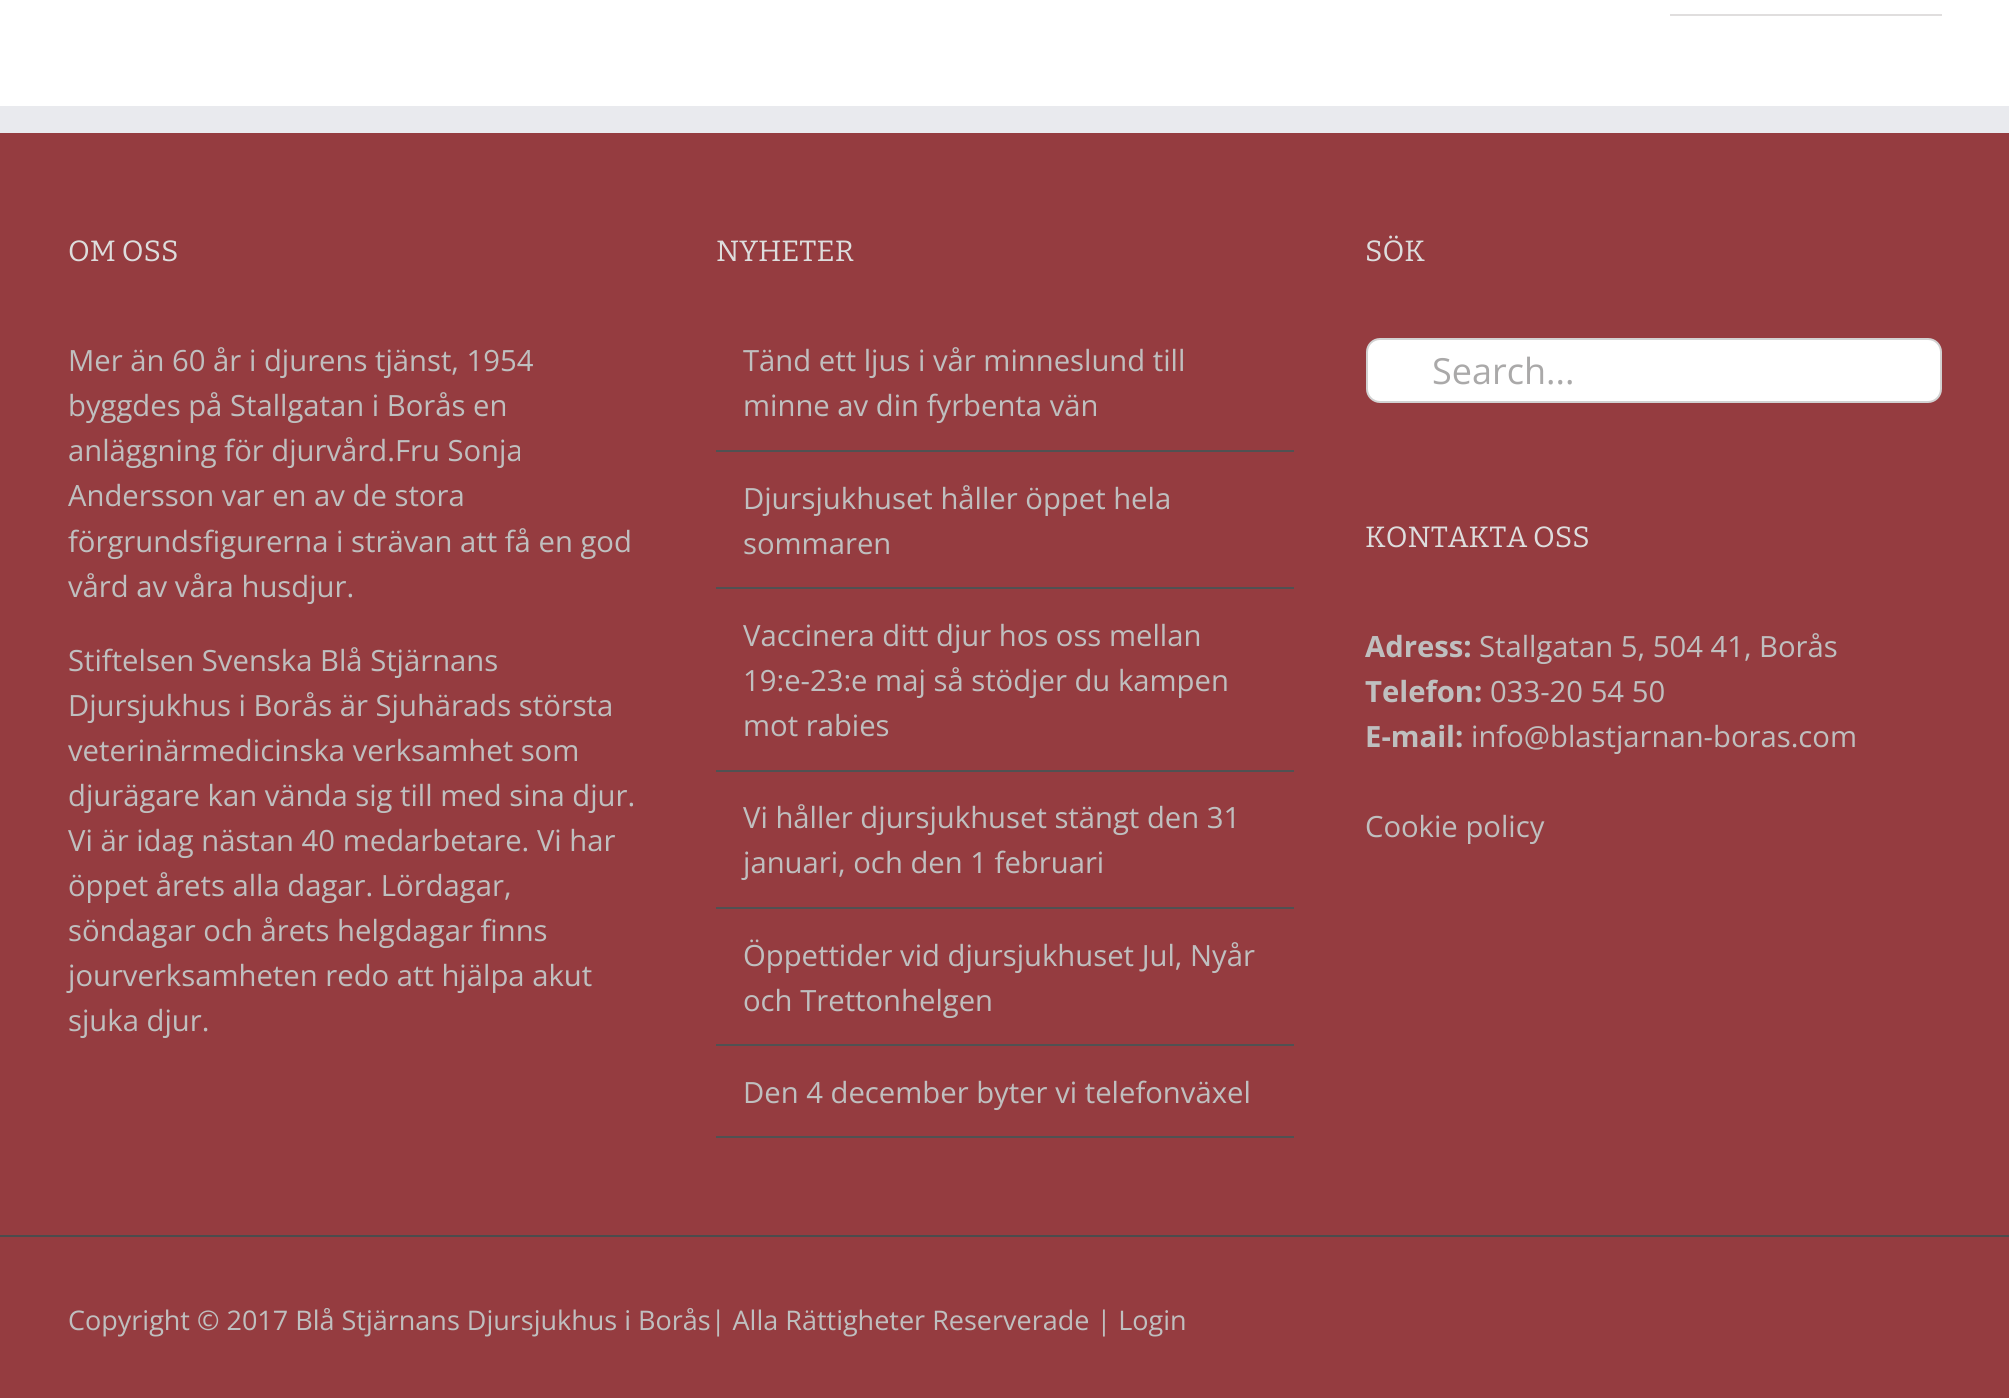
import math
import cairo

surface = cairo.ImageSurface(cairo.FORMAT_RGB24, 2009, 1398)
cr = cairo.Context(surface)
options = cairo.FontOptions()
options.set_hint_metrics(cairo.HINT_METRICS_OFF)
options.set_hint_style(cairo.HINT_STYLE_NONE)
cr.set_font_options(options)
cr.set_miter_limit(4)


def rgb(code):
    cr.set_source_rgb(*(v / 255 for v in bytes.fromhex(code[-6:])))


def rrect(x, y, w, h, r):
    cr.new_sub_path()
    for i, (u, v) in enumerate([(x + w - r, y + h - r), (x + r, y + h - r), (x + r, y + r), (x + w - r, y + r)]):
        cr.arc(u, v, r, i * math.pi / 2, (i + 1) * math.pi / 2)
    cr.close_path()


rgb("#ffffff")
cr.paint()
for x, y, w, h, color in [
    (1670, 14, 272, 2, "#e0dede"),
    (0, 133, 2009, 1102, "#953c40"),
    (0, 106, 2009, 27, "#e9eaee"),
    (716, 450, 578, 2, "#505152"),
    (716, 587, 578, 2, "#505152"),
    (716, 770, 578, 2, "#505152"),
    (716, 907, 578, 2, "#505152"),
    (716, 1044, 578, 2, "#505152"),
    (716, 1136, 578, 2, "#505152"),
]:
    rgb(color)
    cr.rectangle(x, y, w, h)
    cr.fill()
rgb("#ffffff")
rrect(1367, 339, 574, 63, 13)
cr.fill_preserve()
rgb("#d2d2d2")
cr.stroke()
rgb("#953c40")
cr.rectangle(0, 1237, 2009, 161)
cr.fill()
rgb("#4b4c4d")
cr.rectangle(0, 1235, 2009, 2)
cr.fill()
cr.select_font_face("Bitter")
cr.set_font_size(29.25)
rgb("#dddddd")
cr.move_to(68, 261)
cr.show_text("OM OSS")
cr.select_font_face("Open Sans")
rgb("#bfbfbf")
for x, y, s in [
    (68, 371, "Mer än 60 år i djurens tjänst, 1954"),
    (68, 416, "byggdes på Stallgatan i Borås en"),
    (68, 461, "anläggning för djurvård.Fru Sonja"),
    (68, 506, "Andersson var en av de stora"),
    (68, 552, "förgrundsfigurerna i strävan att få en god"),
    (68, 597, "vård av våra husdjur."),
    (68, 671, "Stiftelsen Svenska Blå Stjärnans"),
    (68, 716, "Djursjukhus i Borås är Sjuhärads största"),
    (68, 761, "veterinärmedicinska verksamhet som"),
    (68, 806, "djurägare kan vända sig till med sina djur."),
    (68, 851, "Vi är idag nästan 40 medarbetare. Vi har"),
    (68, 896, "öppet årets alla dagar. Lördagar,"),
    (68, 941, "söndagar och årets helgdagar finns"),
    (68, 986, "jourverksamheten redo att hjälpa akut"),
    (68, 1031, "sjuka djur."),
]:
    cr.move_to(x, y)
    cr.show_text(s)
cr.select_font_face("Bitter")
rgb("#dddddd")
cr.move_to(716, 261)
cr.show_text("NYHETER")
cr.select_font_face("Open Sans")
rgb("#bfbfbf")
for x, y, s in [
    (743, 371, "Tänd ett ljus i vår minneslund till"),
    (743, 416, "minne av din fyrbenta vän"),
    (743, 509, "Djursjukhuset håller öppet hela"),
    (743, 554, "sommaren"),
    (743, 646, "Vaccinera ditt djur hos oss mellan"),
    (743, 691, "19:e-23:e maj så stödjer du kampen"),
    (743, 736, "mot rabies"),
    (743, 828, "Vi håller djursjukhuset stängt den 31"),
    (743, 873, "januari, och den 1 februari"),
    (743, 966, "Öppettider vid djursjukhuset Jul, Nyår"),
    (743, 1011, "och Trettonhelgen"),
    (743, 1103, "Den 4 december byter vi telefonväxel"),
]:
    cr.move_to(x, y)
    cr.show_text(s)
cr.select_font_face("Bitter")
rgb("#dddddd")
cr.move_to(1365, 261)
cr.show_text("SÖK")
cr.select_font_face("Open Sans")
cr.set_font_size(36)
rgb("#aaa9a9")
cr.move_to(1432, 384)
cr.show_text("Search...")
cr.select_font_face("Bitter")
cr.set_font_size(29.25)
rgb("#dddddd")
cr.move_to(1365, 547)
cr.show_text("KONTAKTA OSS")
cr.select_font_face("Open Sans", cairo.FONT_SLANT_NORMAL, cairo.FONT_WEIGHT_BOLD)
rgb("#bfbfbf")
cr.move_to(1365, 657)
cr.show_text("Adress:")
cr.select_font_face("Open Sans")
cr.move_to(1479, 657)
cr.show_text("Stallgatan 5, 504 41, Borås")
cr.select_font_face("Open Sans", cairo.FONT_SLANT_NORMAL, cairo.FONT_WEIGHT_BOLD)
cr.move_to(1365, 702)
cr.show_text("Telefon:")
cr.select_font_face("Open Sans")
cr.move_to(1490, 702)
cr.show_text("033-20 54 50")
cr.select_font_face("Open Sans", cairo.FONT_SLANT_NORMAL, cairo.FONT_WEIGHT_BOLD)
cr.move_to(1365, 747)
cr.show_text("E-mail:")
cr.select_font_face("Open Sans")
cr.move_to(1471, 747)
cr.show_text("info@blastjarnan-boras.com")
cr.move_to(1365, 837)
cr.show_text("Cookie policy")
cr.set_font_size(27)
cr.move_to(68, 1330)
cr.show_text("Copyright © 2017 Blå Stjärnans Djursjukhus i Borås| Alla Rättigheter Reserverade | Login")
surface.write_to_png("page.png")
